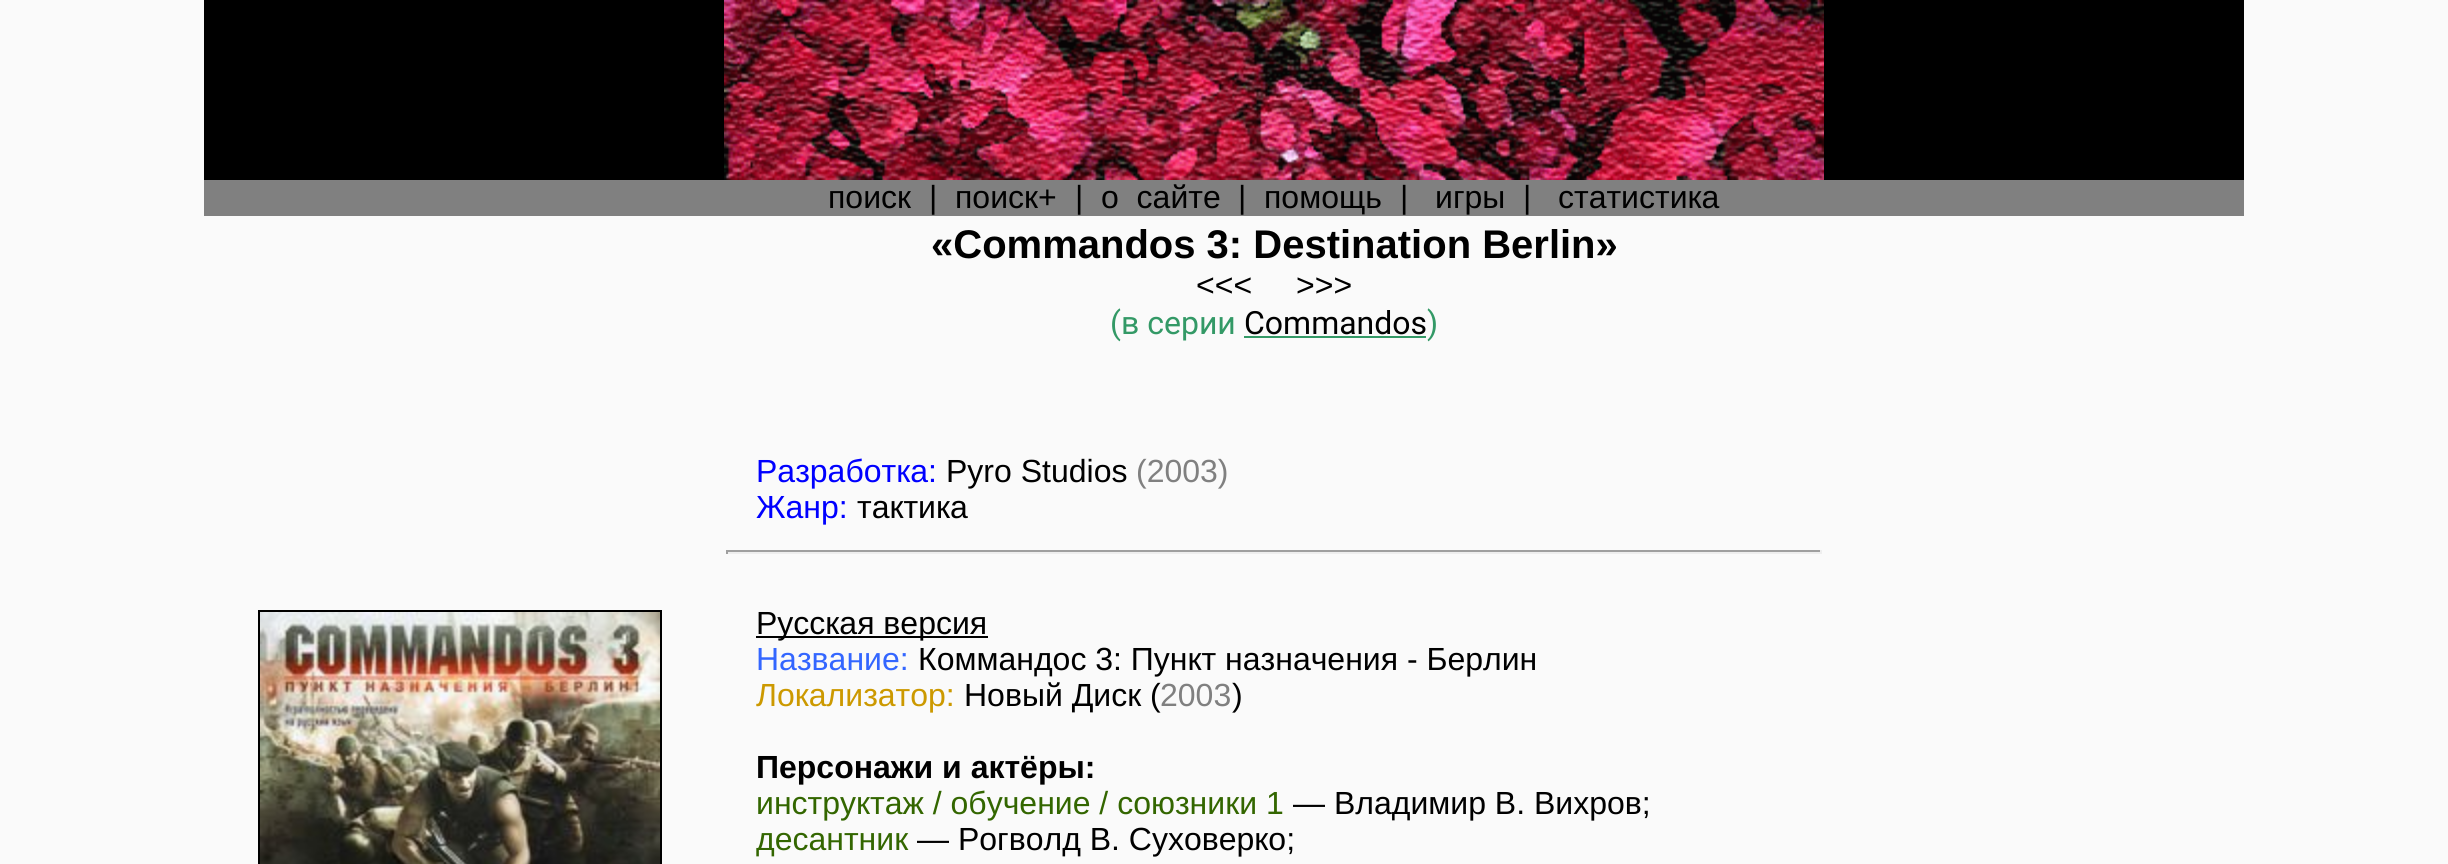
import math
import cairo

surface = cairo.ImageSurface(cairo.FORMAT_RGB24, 2448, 864)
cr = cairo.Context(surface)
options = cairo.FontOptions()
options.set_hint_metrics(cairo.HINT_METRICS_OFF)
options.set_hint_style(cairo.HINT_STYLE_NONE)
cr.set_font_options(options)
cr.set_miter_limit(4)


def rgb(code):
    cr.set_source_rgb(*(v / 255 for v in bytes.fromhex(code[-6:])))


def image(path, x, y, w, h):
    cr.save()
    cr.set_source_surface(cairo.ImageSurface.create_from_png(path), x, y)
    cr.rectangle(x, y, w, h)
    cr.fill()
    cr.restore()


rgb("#fafafa")
cr.paint()
rgb("#000000")
cr.rectangle(204, 0, 520, 180)
cr.fill()
image("img/1.png", 724, 0, 1100, 180)
for x, y, w, h, color in [
    (1824, 0, 420, 180, "#000000"),
    (204, 180, 2040, 36, "#808080"),
    (1244, 336, 182, 2, "#339966"),
]:
    rgb(color)
    cr.rectangle(x, y, w, h)
    cr.fill()
cr.rectangle(259, 611, 402, 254)
rgb("#000000")
cr.stroke()
image("img/2.png", 260, 612, 400, 252)
for x, y, w, h, color in [
    (726, 550, 1096, 2, "#9f9f9f"),
    (1820, 550, 2, 4, "#eeeeee"),
    (726, 552, 1096, 2, "#eeeeee"),
    (726, 550, 2, 4, "#9f9f9f"),
    (756, 636, 232, 2, "#000000"),
]:
    rgb(color)
    cr.rectangle(x, y, w, h)
    cr.fill()
cr.select_font_face("Liberation Sans")
cr.set_font_size(32)
for x, y, s in [
    (828, 208, "поиск"),
    (929, 208, "|"),
    (955, 208, "поиск+"),
    (1075, 208, "|"),
    (1101, 208, "о  сайте"),
    (1238, 208, "|"),
    (1264, 208, "помощь"),
    (1400, 208, "|"),
    (1435, 208, "игры"),
    (1523, 208, "|"),
    (1558, 208, "статистика"),
]:
    cr.move_to(x, y)
    cr.show_text(s)
cr.select_font_face("Liberation Sans", cairo.FONT_SLANT_NORMAL, cairo.FONT_WEIGHT_BOLD)
cr.set_font_size(40)
cr.move_to(931, 258)
cr.show_text("«Commandos 3: Destination Berlin»")
cr.select_font_face("Liberation Sans")
cr.set_font_size(32)
cr.move_to(1196, 296)
cr.show_text("<<<")
cr.move_to(1296, 296)
cr.show_text(">>>")
cr.select_font_face("Roboto")
rgb("#339966")
cr.move_to(1110, 334)
cr.show_text("(в серии")
rgb("#000000")
cr.move_to(1244, 334)
cr.show_text("Commandos")
rgb("#339966")
cr.move_to(1427, 334)
cr.show_text(")")
cr.select_font_face("Liberation Sans")
rgb("#0000ff")
cr.move_to(756, 482)
cr.show_text("Разработка:")
rgb("#000000")
cr.move_to(946, 482)
cr.show_text("Pyro Studios")
rgb("#808080")
cr.move_to(1136, 482)
cr.show_text("(2003)")
rgb("#0000ff")
cr.move_to(756, 518)
cr.show_text("Жанр:")
rgb("#000000")
cr.move_to(857, 518)
cr.show_text("тактика")
cr.move_to(756, 634)
cr.show_text("Русская версия")
rgb("#3366ff")
cr.move_to(756, 670)
cr.show_text("Название:")
rgb("#000000")
cr.move_to(918, 670)
cr.show_text("Коммандос 3: Пункт назначения - Берлин")
rgb("#cc9900")
cr.move_to(756, 706)
cr.show_text("Локализатор:")
rgb("#000000")
cr.move_to(964, 706)
cr.show_text("Новый Диск (")
rgb("#808080")
cr.move_to(1160, 706)
cr.show_text("2003")
rgb("#000000")
cr.move_to(1232, 706)
cr.show_text(")")
cr.select_font_face("Liberation Sans", cairo.FONT_SLANT_NORMAL, cairo.FONT_WEIGHT_BOLD)
cr.move_to(756, 778)
cr.show_text("Персонажи и актёры:")
cr.select_font_face("Liberation Sans")
rgb("#336600")
cr.move_to(756, 814)
cr.show_text("инструктаж / обучение / союзники 1")
rgb("#000000")
cr.move_to(1293, 814)
cr.show_text("— Владимир В. Вихров;")
rgb("#336600")
cr.move_to(756, 850)
cr.show_text("десантник")
rgb("#000000")
cr.move_to(917, 850)
cr.show_text("— Рогволд В. Суховерко;")
surface.write_to_png("page.png")
